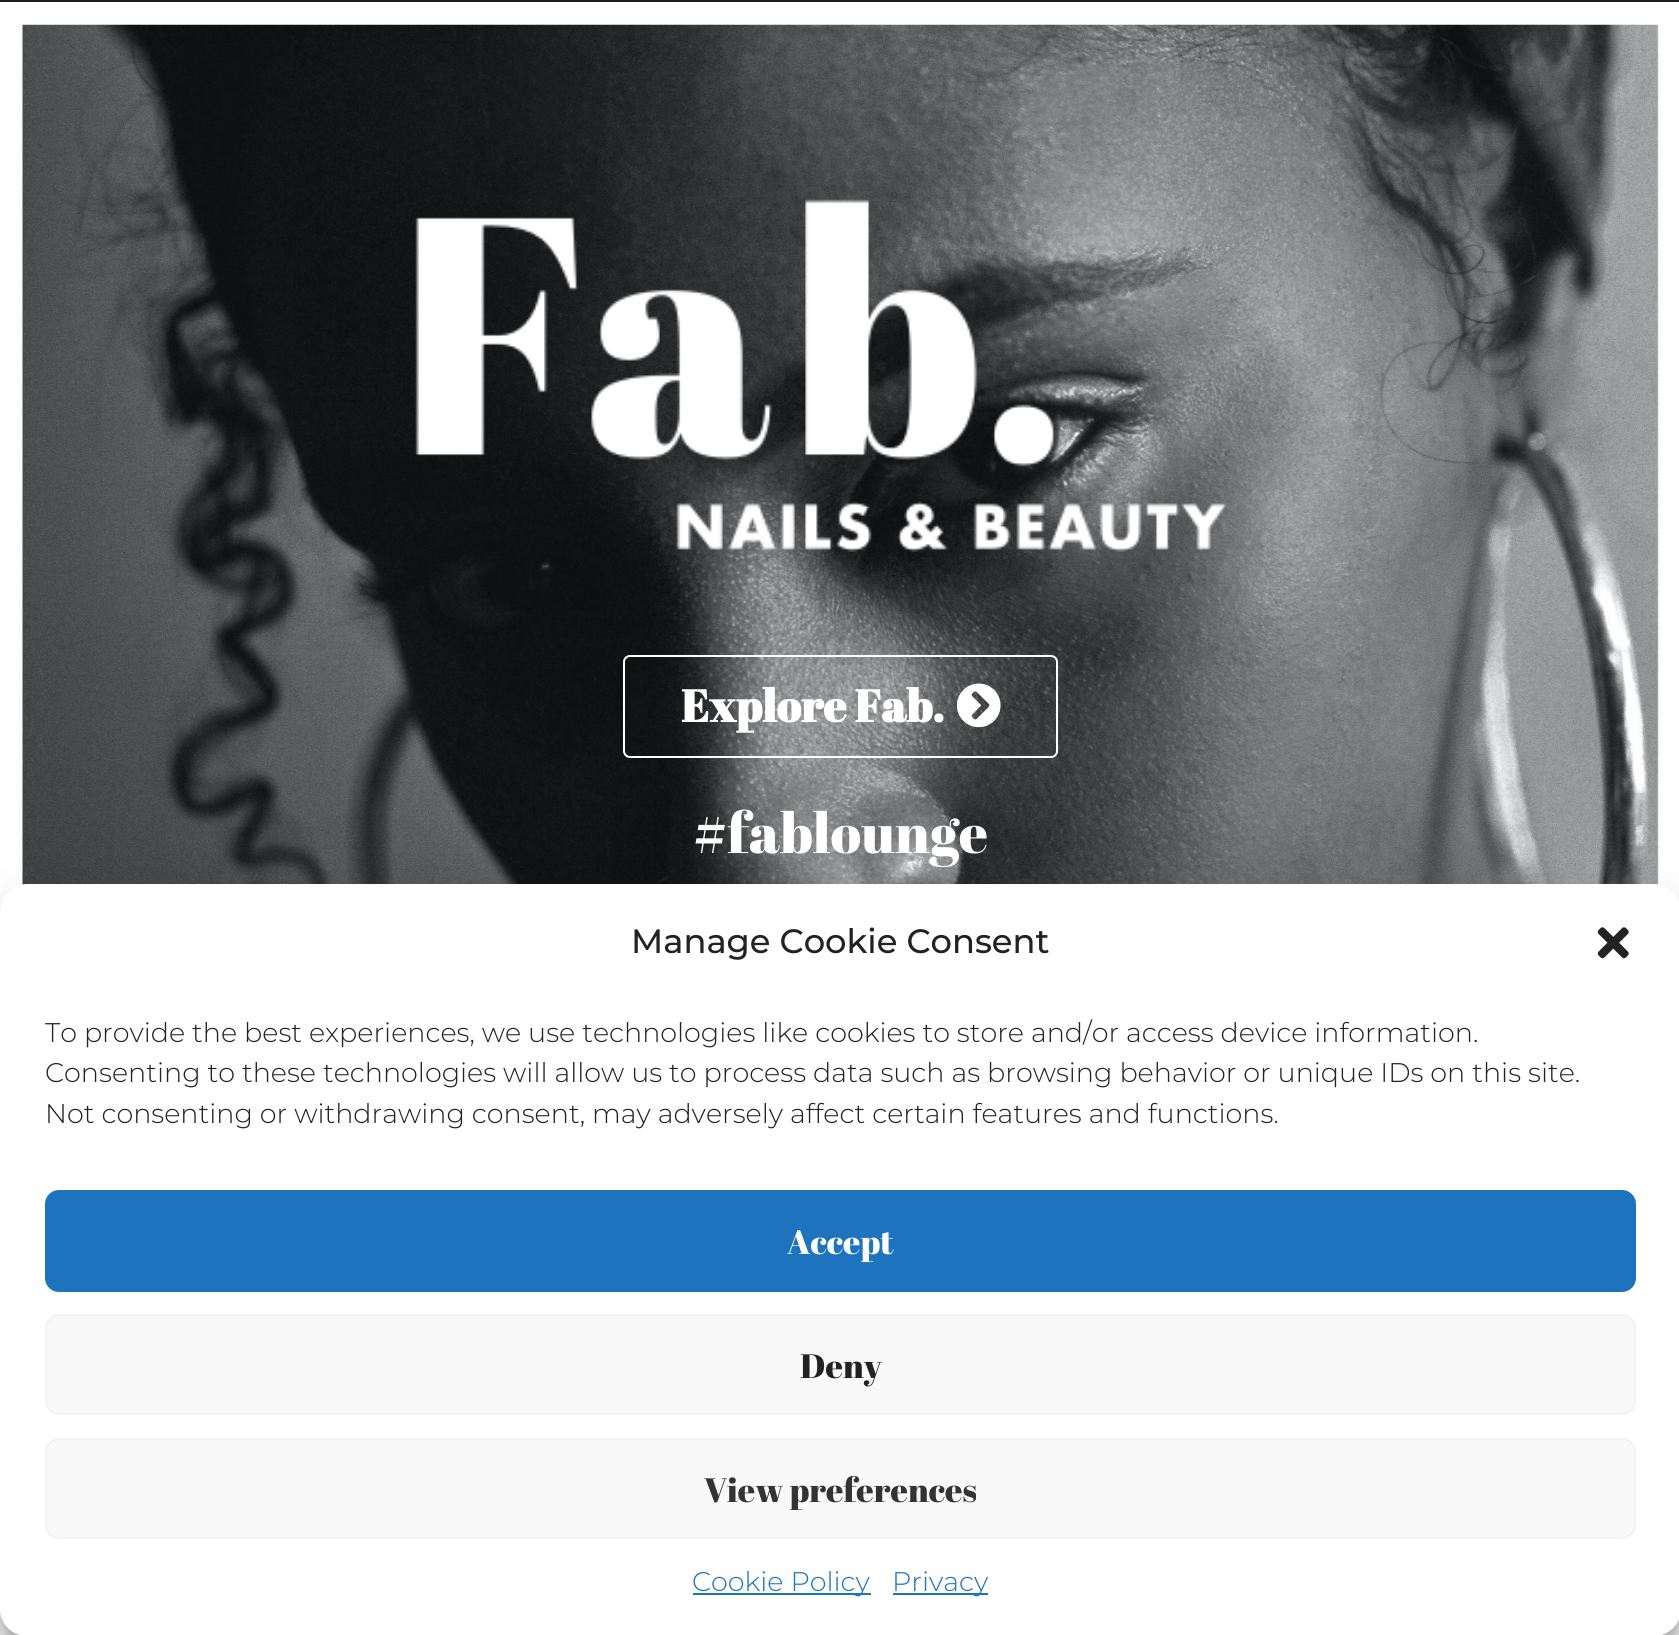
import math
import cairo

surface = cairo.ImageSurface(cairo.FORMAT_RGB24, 1679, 1635)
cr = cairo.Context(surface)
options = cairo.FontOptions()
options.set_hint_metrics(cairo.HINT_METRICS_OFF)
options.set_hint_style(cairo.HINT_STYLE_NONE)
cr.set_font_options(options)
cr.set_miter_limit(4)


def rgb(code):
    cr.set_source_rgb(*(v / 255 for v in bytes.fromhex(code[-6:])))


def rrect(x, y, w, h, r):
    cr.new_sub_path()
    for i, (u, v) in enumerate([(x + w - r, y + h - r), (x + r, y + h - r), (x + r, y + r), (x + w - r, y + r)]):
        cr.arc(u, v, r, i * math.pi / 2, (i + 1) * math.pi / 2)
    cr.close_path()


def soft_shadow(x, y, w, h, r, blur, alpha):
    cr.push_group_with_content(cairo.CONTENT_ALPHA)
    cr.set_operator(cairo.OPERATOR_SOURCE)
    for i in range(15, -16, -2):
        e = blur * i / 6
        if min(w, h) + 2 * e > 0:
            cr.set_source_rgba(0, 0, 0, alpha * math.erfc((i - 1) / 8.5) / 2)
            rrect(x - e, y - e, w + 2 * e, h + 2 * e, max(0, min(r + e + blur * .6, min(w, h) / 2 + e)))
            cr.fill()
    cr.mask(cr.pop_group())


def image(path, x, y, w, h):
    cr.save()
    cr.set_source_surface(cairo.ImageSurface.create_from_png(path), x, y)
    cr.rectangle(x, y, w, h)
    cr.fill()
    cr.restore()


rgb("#ffffff")
cr.paint()
rgb("#1d1d1d")
cr.rectangle(0, 0, 1679, 2)
cr.fill()
image("img/1.png", 22, 24, 1637, 861)
image("img/2.png", 415, 199, 812, 353)
rrect(624, 656, 433, 101, 6)
rgb("#ffffff")
cr.stroke()
image("img/3.png", 956, 683, 45, 45)
rgb("#000000")
soft_shadow(0, 898, 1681, 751, 27, 7, 0.23)
soft_shadow(0, 907, 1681, 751, 27, 22.5, 0.19)
rgb("#ffffff")
rrect(0, 884, 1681, 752, 27)
cr.fill()
image("img/4.png", 1597, 927, 32, 32)
rgb("#1e73be")
rrect(46, 1191, 1589, 100, 13)
cr.fill_preserve()
cr.stroke()
rgb("#f9f9f9")
rrect(46, 1315, 1589, 99, 13)
cr.fill_preserve()
rgb("#f2f2f2")
cr.stroke()
rgb("#f9f9f9")
rrect(46, 1439, 1589, 99, 13)
cr.fill_preserve()
rgb("#f2f2f2")
cr.stroke()
rgb("#1e73be")
cr.rectangle(693, 1593, 178, 2)
cr.fill()
cr.rectangle(893, 1593, 95, 2)
cr.fill()
cr.select_font_face("Abril Fatface", cairo.FONT_SLANT_NORMAL, cairo.FONT_WEIGHT_BOLD)
cr.set_font_size(45)
rgb("#ffffff")
cr.move_to(681, 722)
cr.show_text("Explore Fab.")
cr.select_font_face("Abril Fatface")
cr.set_font_size(56.25)
cr.move_to(693, 853)
cr.show_text("#fablounge")
cr.select_font_face("Montserrat Medium")
cr.set_font_size(33.75)
rgb("#222222")
cr.move_to(631, 953)
cr.show_text("Manage Cookie Consent")
cr.select_font_face("Montserrat Light")
cr.set_font_size(27)
for x, y, s in [
    (45, 1042, "To provide the best experiences, we use technologies like cookies to store and/or access device information."),
    (45, 1082, "Consenting to these technologies will allow us to process data such as browsing behavior or unique IDs on this site."),
    (45, 1123, "Not consenting or withdrawing consent, may adversely affect certain features and functions."),
]:
    cr.move_to(x, y)
    cr.show_text(s)
cr.select_font_face("Abril Fatface")
cr.set_font_size(33.75)
rgb("#ffffff")
cr.move_to(787, 1254)
cr.show_text("Accept")
rgb("#222222")
cr.move_to(800, 1378)
cr.show_text("Deny")
rgb("#333333")
cr.move_to(704, 1502)
cr.show_text("View preferences")
cr.select_font_face("Montserrat Light")
cr.set_font_size(27)
rgb("#1e73be")
cr.move_to(692, 1591)
cr.show_text("Cookie Policy")
cr.move_to(892, 1591)
cr.show_text("Privacy")
surface.write_to_png("page.png")
